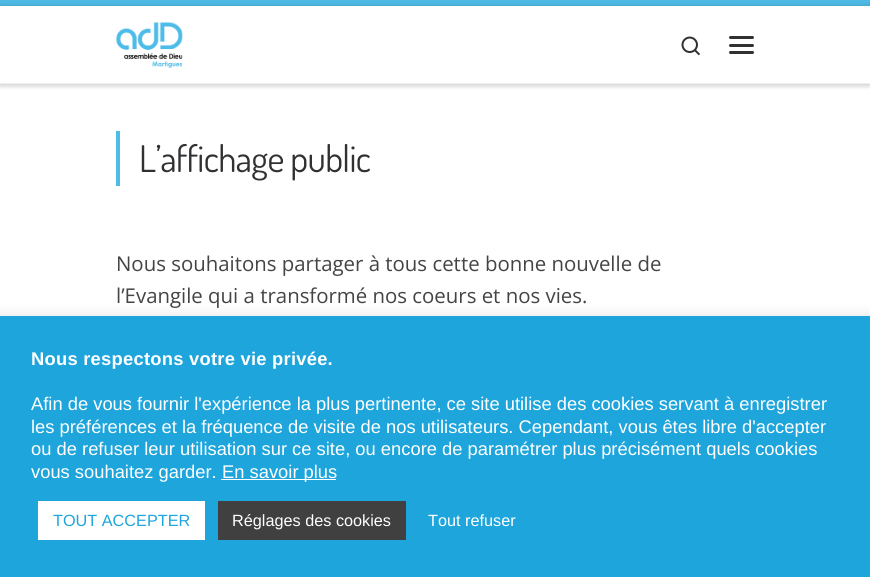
import math
import cairo

surface = cairo.ImageSurface(cairo.FORMAT_RGB24, 870, 577)
cr = cairo.Context(surface)
options = cairo.FontOptions()
options.set_hint_metrics(cairo.HINT_METRICS_OFF)
options.set_hint_style(cairo.HINT_STYLE_NONE)
cr.set_font_options(options)
cr.set_miter_limit(4)


def rgb(code):
    cr.set_source_rgb(*(v / 255 for v in bytes.fromhex(code[-6:])))


def tracked(x, y, s, letter, word):
    cr.move_to(x, y)
    for ch in s:
        cr.show_text(ch)
        cr.rel_move_to(letter + word * (ch == ' '), 0)


def rrect(x, y, w, h, r):
    cr.new_sub_path()
    for i, (u, v) in enumerate([(x + w - r, y + h - r), (x + r, y + h - r), (x + r, y + r), (x + w - r, y + r)]):
        cr.arc(u, v, r, i * math.pi / 2, (i + 1) * math.pi / 2)
    cr.close_path()


def soft_shadow(x, y, w, h, r, blur, alpha):
    cr.push_group_with_content(cairo.CONTENT_ALPHA)
    cr.set_operator(cairo.OPERATOR_SOURCE)
    for i in range(15, -16, -2):
        e = blur * i / 6
        if min(w, h) + 2 * e > 0:
            cr.set_source_rgba(0, 0, 0, alpha * math.erfc((i - 1) / 8.5) / 2)
            rrect(x - e, y - e, w + 2 * e, h + 2 * e, max(0, min(r + e + blur * .6, min(w, h) / 2 + e)))
            cr.fill()
    cr.mask(cr.pop_group())


def image(path, x, y, w, h):
    cr.save()
    cr.set_source_surface(cairo.ImageSurface.create_from_png(path), x, y)
    cr.rectangle(x, y, w, h)
    cr.fill()
    cr.restore()


rgb("#ffffff")
cr.paint()
rgb("#666666")
soft_shadow(0, 3, 870, 85, 0, 1, 0.08)
rgb("#4ebce8")
cr.rectangle(0, 0, 870, 6)
cr.fill()
rgb("#efefef")
cr.rectangle(0, 84, 870, 1)
cr.fill()
rgb("#000000")
soft_shadow(0, 6, 870, 78, 0, 3, 0.2)
rgb("#ffffff")
cr.rectangle(0, 6, 870, 77)
cr.fill()
image("img/1.png", 116, 22, 67, 46)
image("img/2.png", 681, 36, 19, 20)
rgb("#313131")
rrect(729, 36, 25, 3, 1.5)
cr.fill()
rrect(729, 44, 25, 3, 1.5)
cr.fill()
rrect(729, 51, 25, 3, 1.5)
cr.fill()
rgb("#f0f0f0")
cr.rectangle(0, 83, 870, 1)
cr.fill()
rgb("#4ebce8")
cr.rectangle(116, 131, 4, 55)
cr.fill()
rgb("#acabab")
soft_shadow(0, 315, 870, 261, 0, 6, 0.3)
for x, y, w, h, color in [
    (0, 316, 870, 261, "#1da5dc"),
    (221, 479, 115, 1, "#ffffff"),
    (38, 501, 167, 39, "#ffffff"),
    (218, 501, 188, 39, "#404040"),
]:
    rgb(color)
    cr.rectangle(x, y, w, h)
    cr.fill()
cr.select_font_face("Dosis")
cr.set_font_size(36.75)
rgb("#303133")
tracked(139, 172, "L’affichage public", -0.6, 0)
cr.select_font_face("Open Sans")
cr.set_font_size(20.4)
rgb("#444444")
cr.move_to(116, 271)
cr.show_text("Nous souhaitons partager à tous cette bonne nouvelle de")
cr.move_to(116, 303)
cr.show_text("l’Evangile qui a transformé nos coeurs et nos vies.")
cr.select_font_face("Liberation Sans", cairo.FONT_SLANT_NORMAL, cairo.FONT_WEIGHT_BOLD)
cr.set_font_size(18.35)
rgb("#ffffff")
tracked(31, 365, "Nous respectons votre vie privée.", 0.25, 0)
cr.select_font_face("Liberation Sans")
for x, y, s in [
    (31, 410, "Afin de vous fournir l'expérience la plus pertinente, ce site utilise des cookies servant à enregistrer"),
    (31, 433, "les préférences et la fréquence de visite de nos utilisateurs. Cependant, vous êtes libre d'accepter"),
    (31, 455, "ou de refuser leur utilisation sur ce site, ou encore de paramétrer plus précisément quels cookies"),
    (31, 478, "vous souhaitez garder."),
    (222, 478, "En savoir plus"),
]:
    cr.move_to(x, y)
    cr.show_text(s)
cr.set_font_size(16.25)
rgb("#1da5dc")
cr.move_to(53, 526)
cr.show_text("TOUT ACCEPTER")
rgb("#ffffff")
cr.move_to(232, 526)
cr.show_text("Réglages des cookies")
cr.move_to(428, 526)
cr.show_text("Tout refuser")
surface.write_to_png("page.png")
